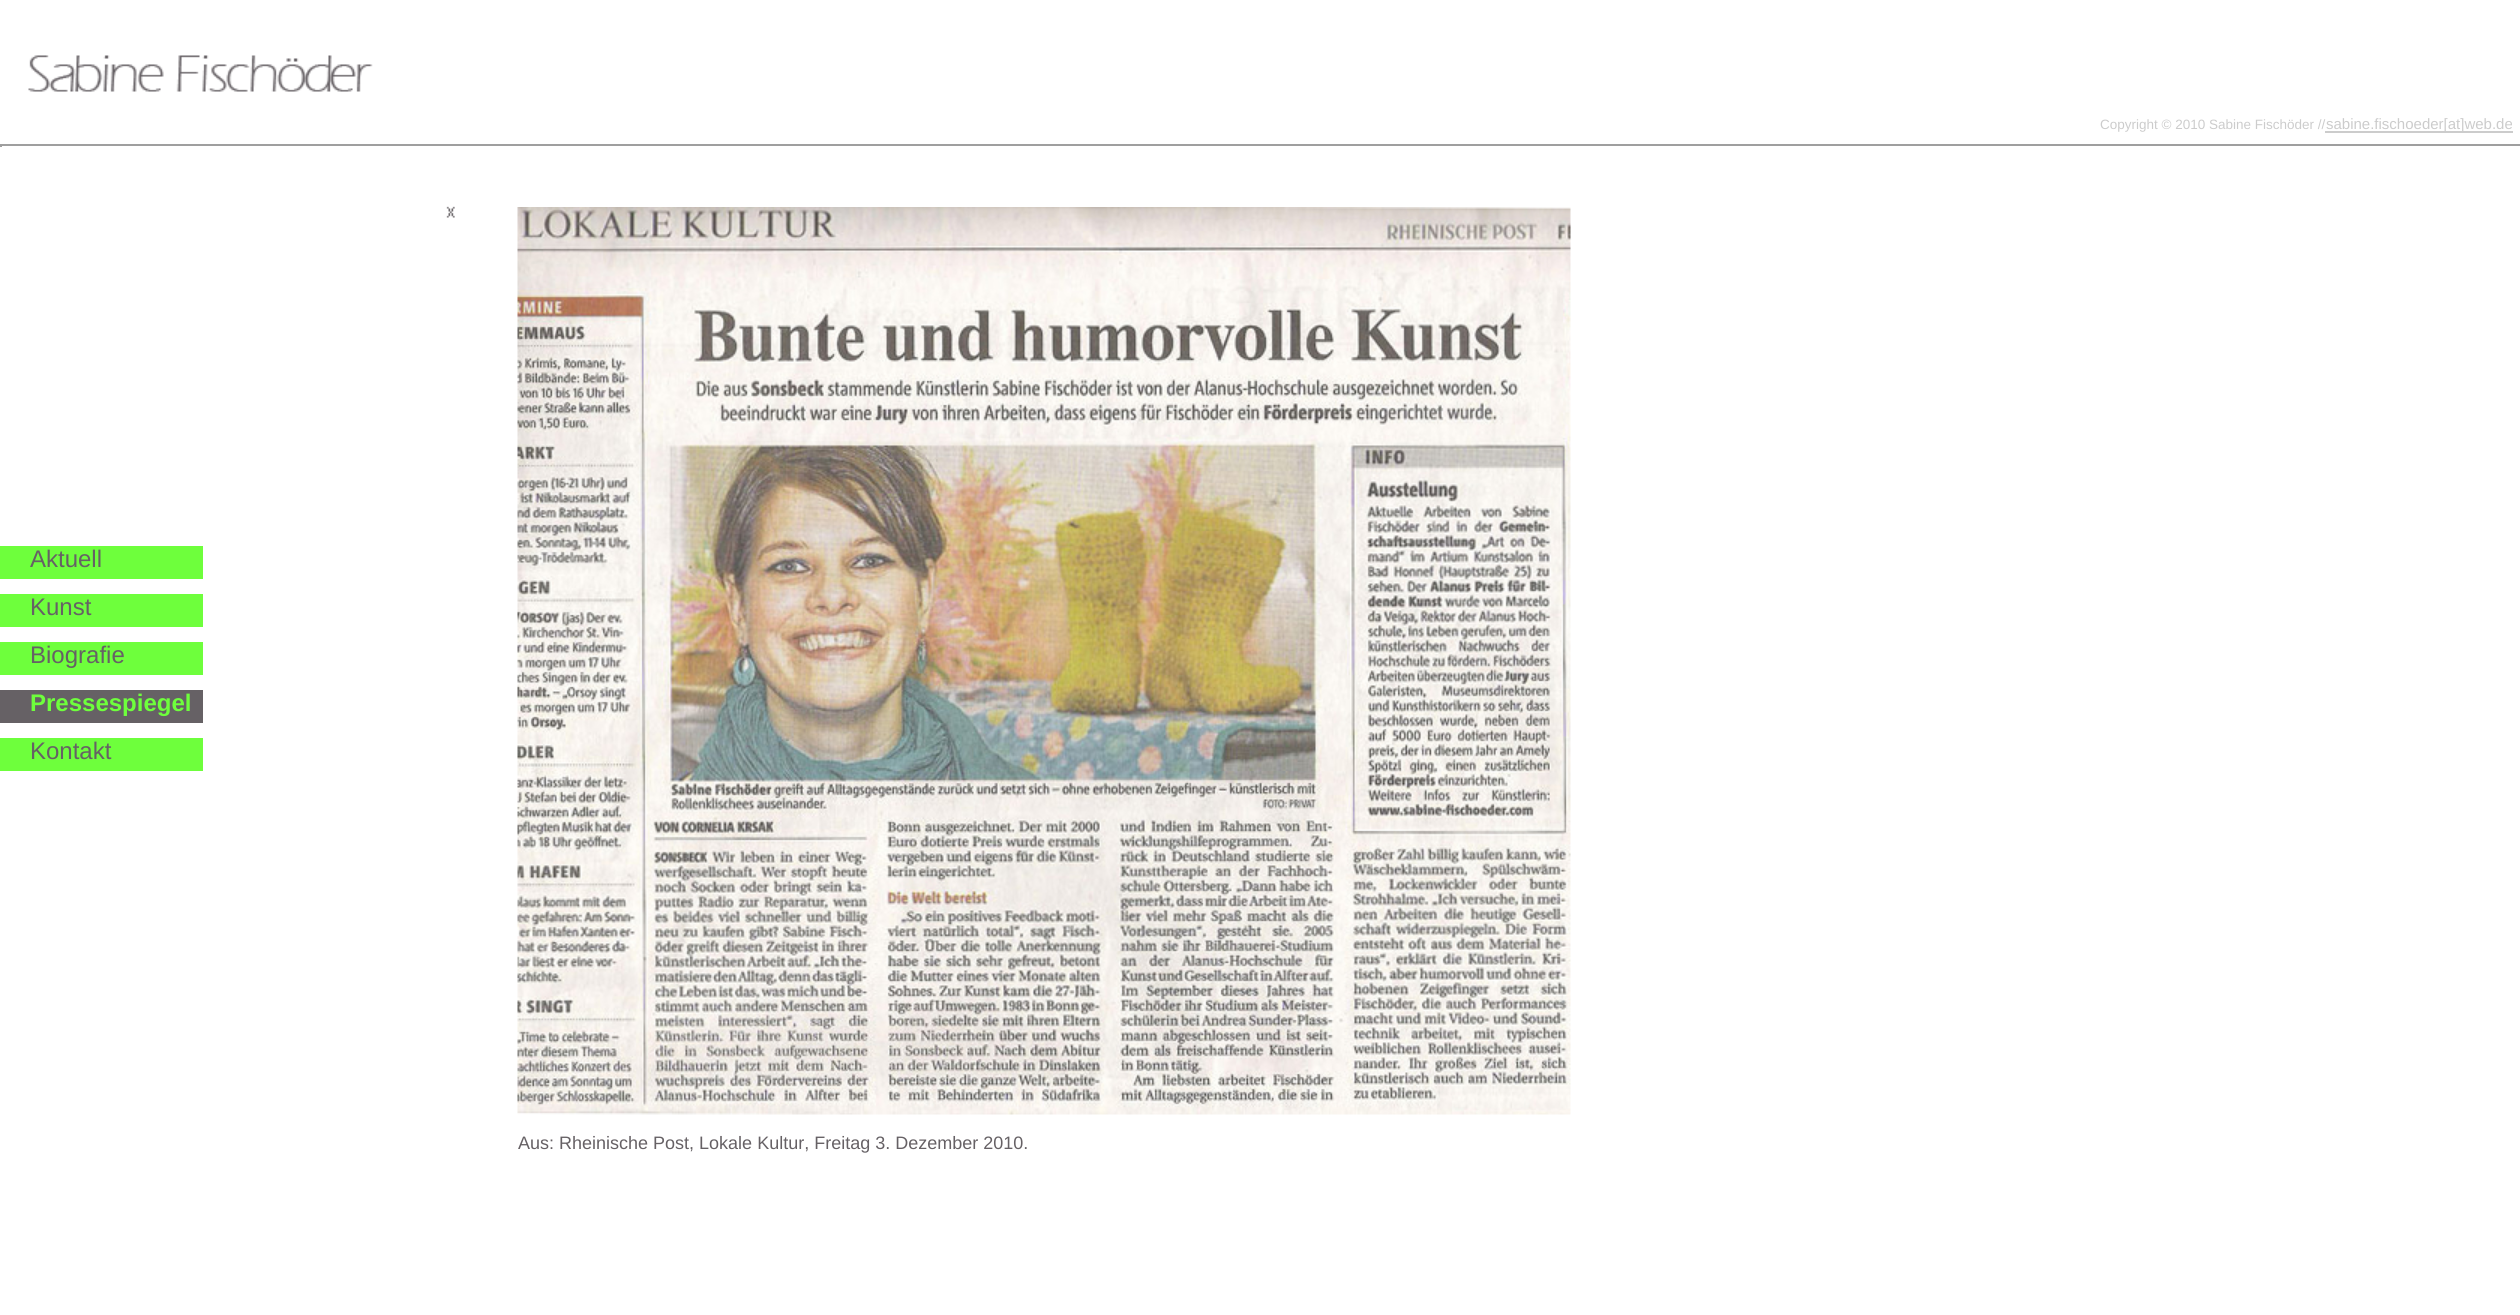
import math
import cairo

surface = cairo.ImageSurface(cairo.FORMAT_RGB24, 2520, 1315)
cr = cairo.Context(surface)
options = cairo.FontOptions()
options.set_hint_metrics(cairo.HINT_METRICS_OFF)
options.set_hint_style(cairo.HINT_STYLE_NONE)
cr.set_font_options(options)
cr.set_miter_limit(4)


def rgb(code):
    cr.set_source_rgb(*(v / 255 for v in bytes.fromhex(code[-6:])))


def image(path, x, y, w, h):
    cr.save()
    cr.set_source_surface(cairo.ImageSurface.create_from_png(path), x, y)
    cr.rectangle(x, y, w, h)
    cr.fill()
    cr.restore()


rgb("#ffffff")
cr.paint()
for x, y, w, h, color in [
    (2325, 131, 188, 2, "#cccccc"),
    (0, 144, 2520, 2, "#9f9f9f"),
    (0, 144, 2, 3, "#9f9f9f"),
]:
    rgb(color)
    cr.rectangle(x, y, w, h)
    cr.fill()
image("img/1.png", 28, 55, 345, 37)
image("img/2.png", 446, 206, 9, 12)
for x, y, w, h, color in [
    (0, 546, 203, 33, "#6eff3c"),
    (0, 594, 203, 33, "#6eff3c"),
    (0, 642, 203, 33, "#6eff3c"),
    (0, 690, 203, 33, "#666165"),
    (0, 738, 203, 33, "#6eff3c"),
]:
    rgb(color)
    cr.rectangle(x, y, w, h)
    cr.fill()
image("img/3.png", 517, 207, 1054, 908)
cr.select_font_face("Liberation Sans")
cr.set_font_size(13.5)
rgb("#cccccc")
cr.move_to(2100, 129)
cr.show_text("Copyright © 2010 Sabine Fischöder //")
cr.set_font_size(15)
cr.move_to(2326, 129)
cr.show_text("sabine.fischoeder[at]web.de")
cr.set_font_size(24)
rgb("#666165")
for x, y, s in [
    (30, 567, "Aktuell"),
    (30, 615, "Kunst"),
    (30, 663, "Biografie"),
]:
    cr.move_to(x, y)
    cr.show_text(s)
cr.select_font_face("Liberation Sans", cairo.FONT_SLANT_NORMAL, cairo.FONT_WEIGHT_BOLD)
rgb("#6eff3c")
cr.move_to(30, 711)
cr.show_text("Pressespiegel")
cr.select_font_face("Liberation Sans")
rgb("#666165")
cr.move_to(30, 759)
cr.show_text("Kontakt")
cr.set_font_size(18)
cr.move_to(518, 1149)
cr.show_text("Aus: Rheinische Post, Lokale Kultur, Freitag 3. Dezember 2010.")
surface.write_to_png("page.png")
